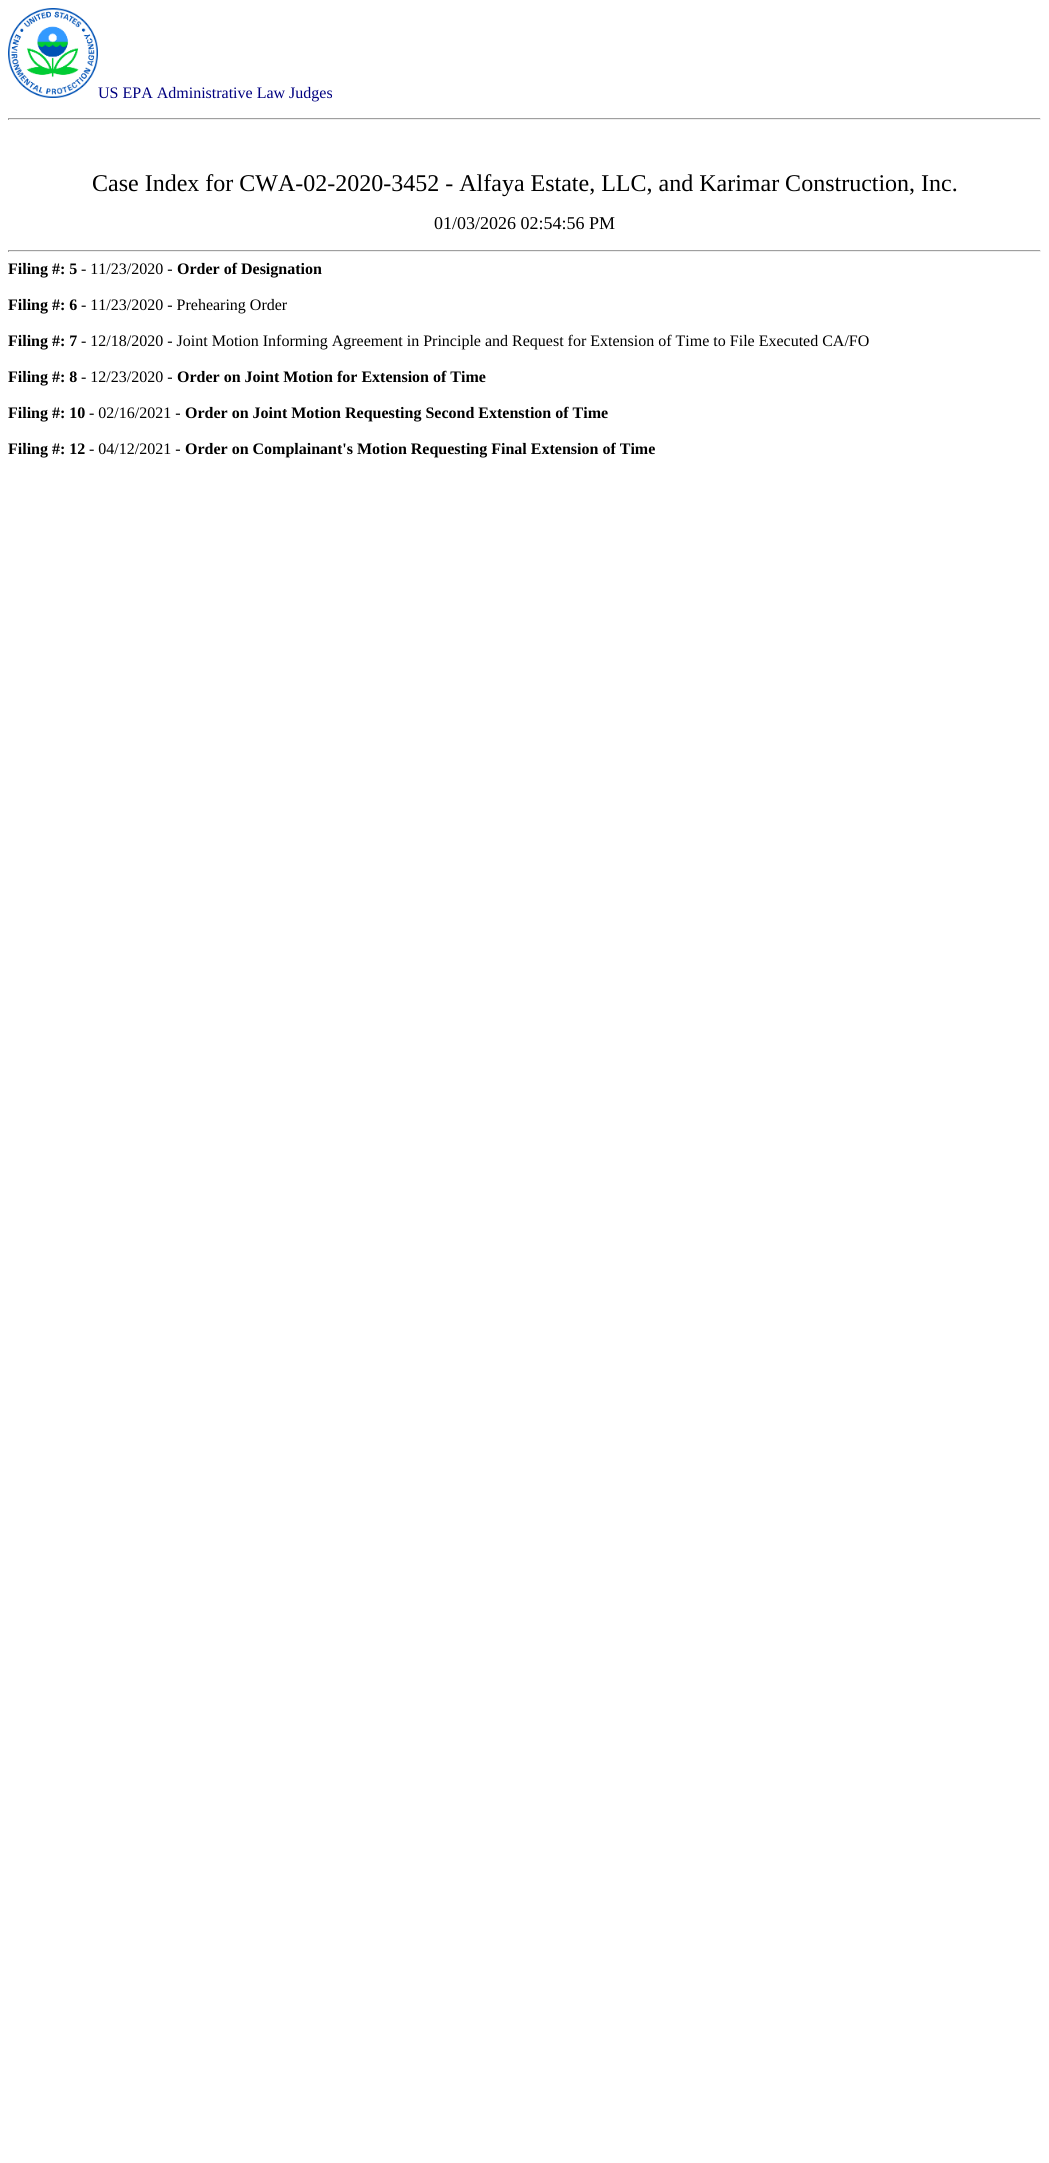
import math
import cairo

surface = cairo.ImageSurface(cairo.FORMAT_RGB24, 1049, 2163)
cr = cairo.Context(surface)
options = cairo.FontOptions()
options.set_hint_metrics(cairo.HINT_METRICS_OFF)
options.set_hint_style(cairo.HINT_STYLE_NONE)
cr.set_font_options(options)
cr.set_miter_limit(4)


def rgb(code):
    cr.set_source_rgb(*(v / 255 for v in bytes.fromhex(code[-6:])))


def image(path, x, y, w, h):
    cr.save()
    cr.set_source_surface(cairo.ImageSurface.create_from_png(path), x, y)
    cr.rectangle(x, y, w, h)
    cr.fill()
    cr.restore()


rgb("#ffffff")
cr.paint()
image("img/1.png", 8, 8, 90, 90)
for x, y, w, h, color in [
    (8, 118, 1033, 1, "#9f9f9f"),
    (1040, 118, 1, 2, "#eeeeee"),
    (8, 119, 1033, 1, "#eeeeee"),
    (8, 118, 1, 2, "#9f9f9f"),
    (8, 250, 1033, 1, "#9f9f9f"),
    (1040, 250, 1, 2, "#eeeeee"),
    (8, 251, 1033, 1, "#eeeeee"),
    (8, 250, 1, 2, "#9f9f9f"),
]:
    rgb(color)
    cr.rectangle(x, y, w, h)
    cr.fill()
cr.select_font_face("Liberation Serif")
cr.set_font_size(16)
rgb("#000080")
cr.move_to(98, 98)
cr.show_text("US EPA Administrative Law Judges")
cr.set_font_size(24)
rgb("#000000")
cr.move_to(92, 191)
cr.show_text("Case Index for CWA-02-2020-3452 - Alfaya Estate, LLC, and Karimar Construction, Inc.")
cr.set_font_size(18)
cr.move_to(434, 229)
cr.show_text("01/03/2026 02:54:56 PM")
cr.select_font_face("Liberation Serif", cairo.FONT_SLANT_NORMAL, cairo.FONT_WEIGHT_BOLD)
cr.set_font_size(16)
cr.move_to(8, 274)
cr.show_text("Filing #: 5")
cr.select_font_face("Liberation Serif")
cr.move_to(81, 274)
cr.show_text("- 11/23/2020 -")
cr.select_font_face("Liberation Serif", cairo.FONT_SLANT_NORMAL, cairo.FONT_WEIGHT_BOLD)
cr.move_to(177, 274)
cr.show_text("Order of Designation")
cr.move_to(8, 310)
cr.show_text("Filing #: 6")
cr.select_font_face("Liberation Serif")
cr.move_to(81, 310)
cr.show_text("- 11/23/2020 - Prehearing Order")
cr.select_font_face("Liberation Serif", cairo.FONT_SLANT_NORMAL, cairo.FONT_WEIGHT_BOLD)
cr.move_to(8, 346)
cr.show_text("Filing #: 7")
cr.select_font_face("Liberation Serif")
cr.move_to(81, 346)
cr.show_text("- 12/18/2020 - Joint Motion Informing Agreement in Principle and Request for Extension of Time to File Executed CA/FO")
cr.select_font_face("Liberation Serif", cairo.FONT_SLANT_NORMAL, cairo.FONT_WEIGHT_BOLD)
cr.move_to(8, 382)
cr.show_text("Filing #: 8")
cr.select_font_face("Liberation Serif")
cr.move_to(81, 382)
cr.show_text("- 12/23/2020 -")
cr.select_font_face("Liberation Serif", cairo.FONT_SLANT_NORMAL, cairo.FONT_WEIGHT_BOLD)
cr.move_to(177, 382)
cr.show_text("Order on Joint Motion for Extension of Time")
cr.move_to(8, 418)
cr.show_text("Filing #: 10")
cr.select_font_face("Liberation Serif")
cr.move_to(89, 418)
cr.show_text("- 02/16/2021 -")
cr.select_font_face("Liberation Serif", cairo.FONT_SLANT_NORMAL, cairo.FONT_WEIGHT_BOLD)
cr.move_to(185, 418)
cr.show_text("Order on Joint Motion Requesting Second Extenstion of Time")
cr.move_to(8, 454)
cr.show_text("Filing #: 12")
cr.select_font_face("Liberation Serif")
cr.move_to(89, 454)
cr.show_text("- 04/12/2021 -")
cr.select_font_face("Liberation Serif", cairo.FONT_SLANT_NORMAL, cairo.FONT_WEIGHT_BOLD)
cr.move_to(185, 454)
cr.show_text("Order on Complainant's Motion Requesting Final Extension of Time")
surface.write_to_png("page.png")
